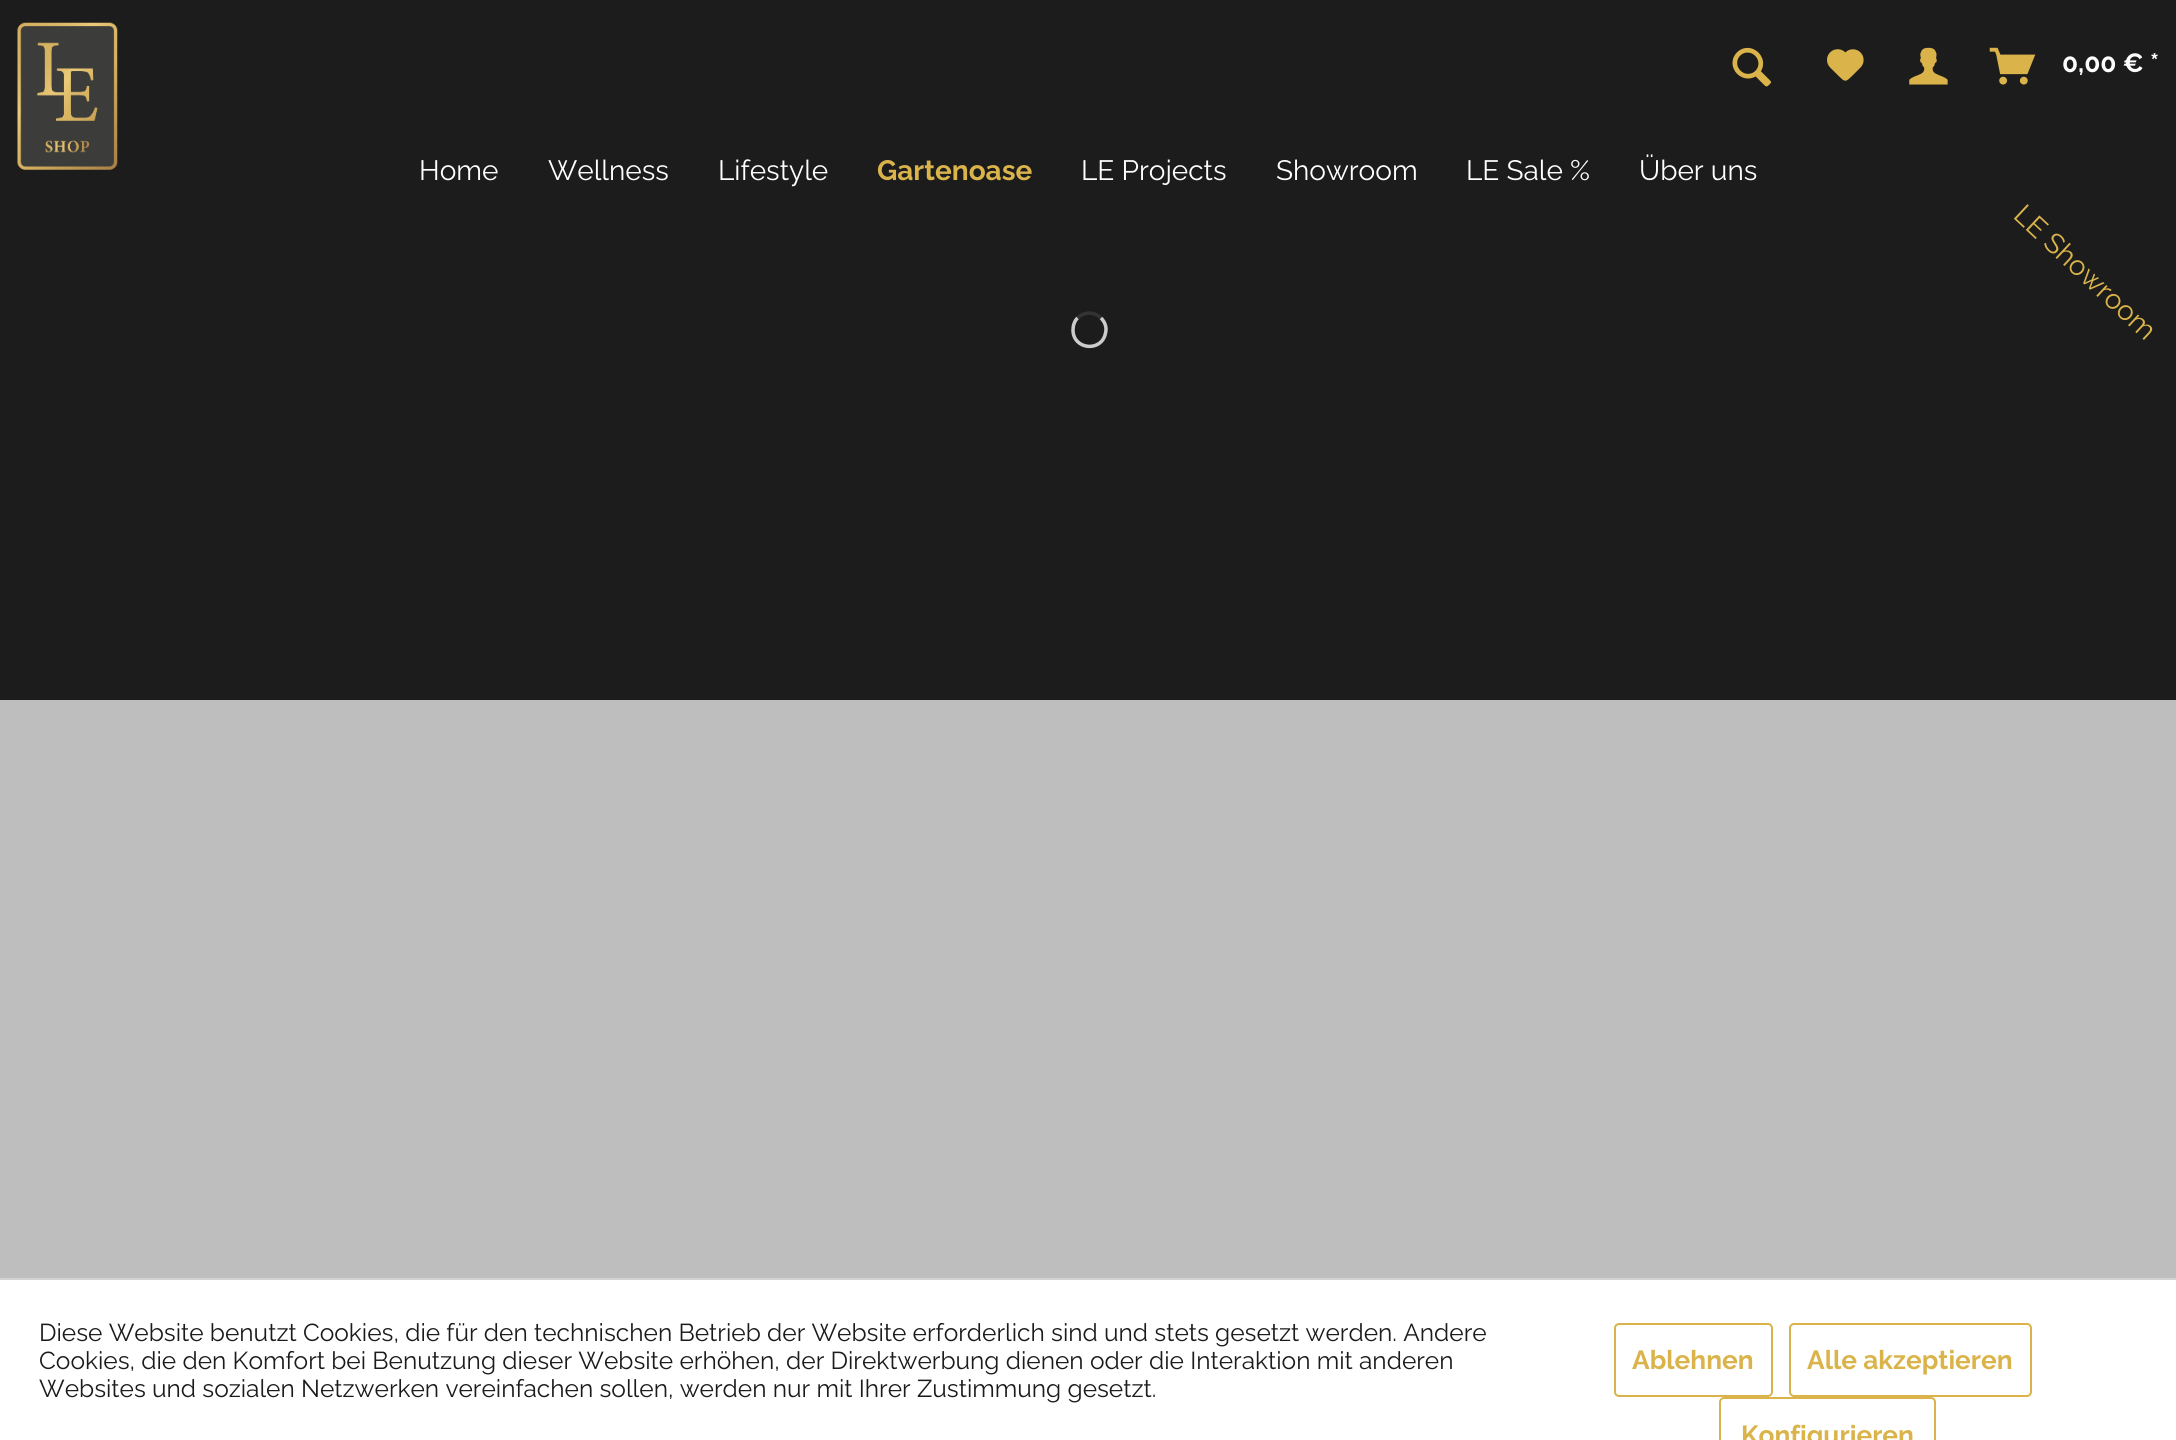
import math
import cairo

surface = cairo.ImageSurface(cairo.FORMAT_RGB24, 2176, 1440)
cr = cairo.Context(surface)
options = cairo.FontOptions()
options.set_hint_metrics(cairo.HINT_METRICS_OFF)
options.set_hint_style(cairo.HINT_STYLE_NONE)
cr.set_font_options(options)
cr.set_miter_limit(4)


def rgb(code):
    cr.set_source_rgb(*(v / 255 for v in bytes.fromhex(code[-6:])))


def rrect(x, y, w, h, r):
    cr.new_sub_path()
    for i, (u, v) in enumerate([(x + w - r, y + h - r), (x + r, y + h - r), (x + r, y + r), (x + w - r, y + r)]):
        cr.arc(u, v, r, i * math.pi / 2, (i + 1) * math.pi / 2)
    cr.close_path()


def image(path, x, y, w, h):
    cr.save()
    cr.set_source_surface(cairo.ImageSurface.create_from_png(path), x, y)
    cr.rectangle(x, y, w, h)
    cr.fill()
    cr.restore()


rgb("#bebebe")
cr.paint()
rgb("#1c1c1c")
cr.rectangle(0, 0, 2176, 700)
cr.fill()
image("img/1.png", 17, 22, 101, 148)
image("img/2.png", 1732, 47, 39, 40)
image("img/3.png", 1827, 49, 37, 32)
image("img/4.png", 1909, 47, 39, 38)
image("img/5.png", 1989, 47, 47, 38)
cr.new_path()
cr.move_to(1077.5, 318)
cr.curve_to(1084, 311.5, 1094.5, 311.5, 1101, 318)
rgb("#333333")
cr.set_line_width(3.5)
cr.stroke()
cr.new_path()
cr.move_to(1101, 318)
cr.curve_to(1105, 322, 1107, 327.5, 1105.5, 333)
cr.curve_to(1102, 352.5, 1073, 350, 1073, 330)
cr.curve_to(1073, 325.5, 1074.5, 321, 1077.5, 318)
rgb("#cccccc")
cr.stroke()
rgb("#ffffff")
cr.rectangle(0, 1280, 2176, 160)
cr.fill()
rgb("#d3d3d3")
cr.rectangle(0, 1278, 2176, 2)
cr.fill()
rrect(1615, 1324, 157, 72, 4)
rgb("#dab44a")
cr.set_line_width(2)
cr.stroke()
rrect(1790, 1324, 241, 72, 4)
cr.stroke()
rrect(1720, 1398, 215, 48, 4)
cr.stroke()
cr.select_font_face("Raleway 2 Thin")
cr.set_font_size(28)
rgb("#ffffff")
for x, y, s in [
    (419, 180, "Home"),
    (548, 180, "Wellness"),
    (718, 180, "Lifestyle"),
]:
    cr.move_to(x, y)
    cr.show_text(s)
cr.select_font_face("Raleway Thin")
rgb("#dab44a")
cr.move_to(877, 180)
cr.show_text("Gartenoase")
cr.select_font_face("Raleway 2 Thin")
rgb("#ffffff")
for x, y, s in [
    (1081, 180, "LE Projects"),
    (1276, 180, "Showroom"),
    (1466, 180, "LE Sale %"),
    (1639, 180, "Über uns"),
]:
    cr.move_to(x, y)
    cr.show_text(s)
cr.select_font_face("Raleway Thin")
cr.set_font_size(26.25)
cr.move_to(2062, 72)
cr.show_text("0,00 € *")
cr.select_font_face("Raleway 2 Thin")
cr.set_font_size(28)
rgb("#dab44a")
cr.save()
cr.translate(2012, 217)
cr.rotate(43 * math.pi / 180)
cr.move_to(0, 0)
cr.show_text("LE Showroom")
cr.restore()
cr.set_font_size(24.5)
rgb("#1b1b1b")
for x, y, s in [
    (39, 1341, "Diese Website benutzt Cookies, die für den technischen Betrieb der Website erforderlich sind und stets gesetzt werden. Andere"),
    (39, 1369, "Cookies, die den Komfort bei Benutzung dieser Website erhöhen, der Direktwerbung dienen oder die Interaktion mit anderen"),
    (39, 1397, "Websites und sozialen Netzwerken vereinfachen sollen, werden nur mit Ihrer Zustimmung gesetzt."),
]:
    cr.move_to(x, y)
    cr.show_text(s)
cr.select_font_face("Raleway Thin")
cr.set_font_size(26.25)
rgb("#dab44a")
for x, y, s in [
    (1632, 1369, "Ablehnen"),
    (1807, 1369, "Alle akzeptieren"),
    (1741, 1444, "Konfigurieren"),
]:
    cr.move_to(x, y)
    cr.show_text(s)
surface.write_to_png("page.png")
